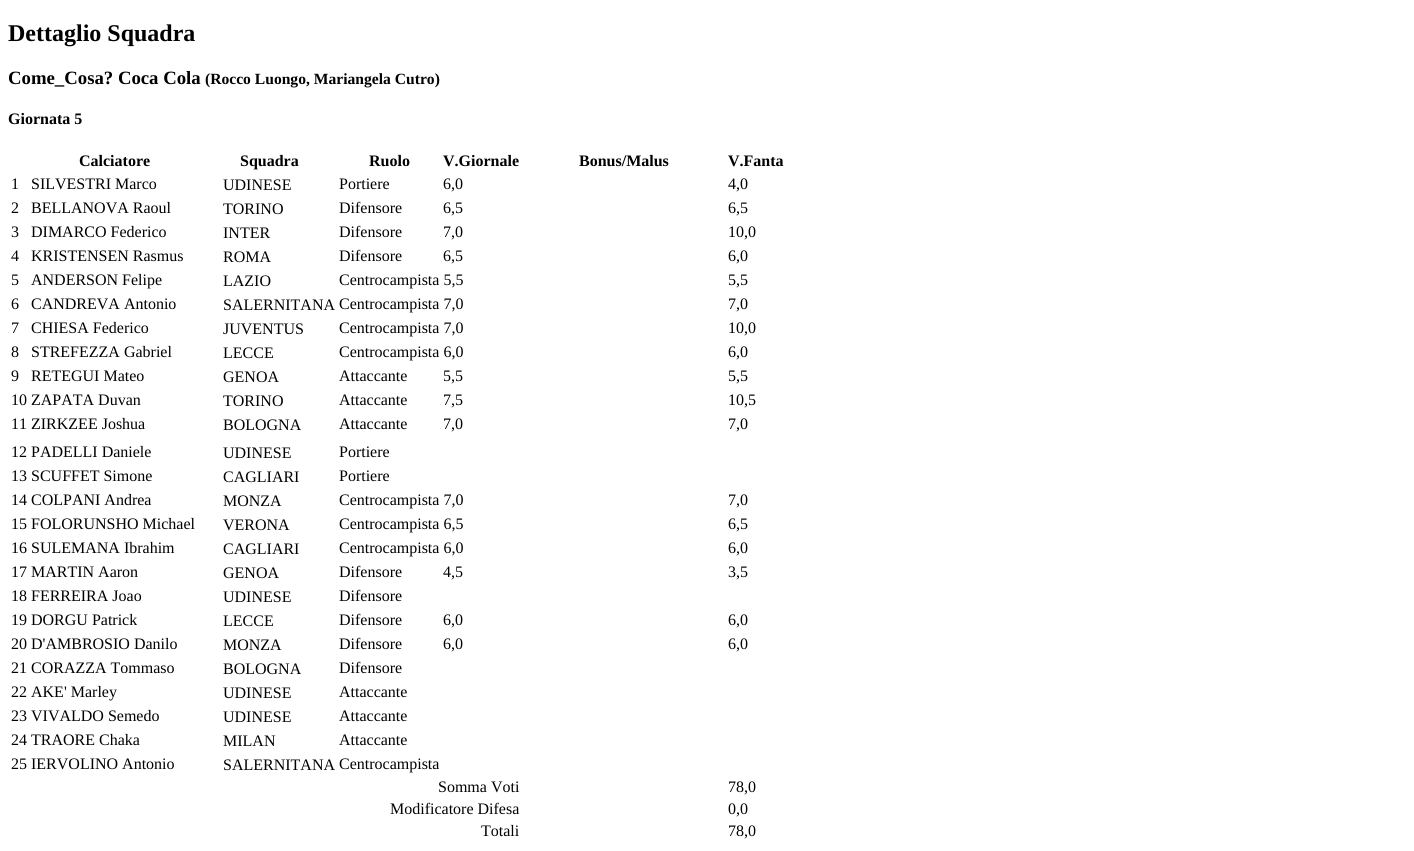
import math
import cairo

surface = cairo.ImageSurface(cairo.FORMAT_RGB24, 1414, 851)
cr = cairo.Context(surface)
options = cairo.FontOptions()
options.set_hint_metrics(cairo.HINT_METRICS_OFF)
options.set_hint_style(cairo.HINT_STYLE_NONE)
cr.set_font_options(options)
cr.set_miter_limit(4)


def rgb(code):
    cr.set_source_rgb(*(v / 255 for v in bytes.fromhex(code[-6:])))


rgb("#ffffff")
cr.paint()
cr.select_font_face("Liberation Serif", cairo.FONT_SLANT_NORMAL, cairo.FONT_WEIGHT_BOLD)
cr.set_font_size(24)
rgb("#000000")
cr.move_to(8, 41)
cr.show_text("Dettaglio Squadra")
cr.set_font_size(18.75)
cr.move_to(8, 84)
cr.show_text("Come_Cosa? Coca Cola")
cr.set_font_size(15.6)
cr.move_to(205, 84)
cr.show_text("(Rocco Luongo, Mariangela Cutro)")
cr.set_font_size(16)
for x, y, s in [
    (8, 124, "Giornata 5"),
    (79, 166, "Calciatore"),
    (240, 166, "Squadra"),
    (369, 166, "Ruolo"),
    (443, 166, "V.Giornale"),
    (579, 166, "Bonus/Malus"),
    (728, 166, "V.Fanta"),
]:
    cr.move_to(x, y)
    cr.show_text(s)
cr.select_font_face("Liberation Serif")
for x, y, s in [
    (11, 189, "1"),
    (31, 189, "SILVESTRI Marco"),
    (223, 190, "UDINESE"),
    (339, 189, "Portiere"),
    (443, 189, "6,0"),
    (728, 189, "4,0"),
    (11, 213, "2"),
    (31, 213, "BELLANOVA Raoul"),
    (223, 214, "TORINO"),
    (339, 213, "Difensore"),
    (443, 213, "6,5"),
    (728, 213, "6,5"),
    (11, 237, "3"),
    (31, 237, "DIMARCO Federico"),
    (223, 238, "INTER"),
    (339, 237, "Difensore"),
    (443, 237, "7,0"),
    (728, 237, "10,0"),
    (11, 261, "4"),
    (31, 261, "KRISTENSEN Rasmus"),
    (223, 262, "ROMA"),
    (339, 261, "Difensore"),
    (443, 261, "6,5"),
    (728, 261, "6,0"),
    (11, 285, "5"),
    (31, 285, "ANDERSON Felipe"),
    (223, 286, "LAZIO"),
    (339, 285, "Centrocampista 5,5"),
    (728, 285, "5,5"),
    (11, 309, "6"),
    (31, 309, "CANDREVA Antonio"),
    (223, 310, "SALERNITANA"),
    (339, 309, "Centrocampista 7,0"),
    (728, 309, "7,0"),
    (11, 333, "7"),
    (31, 333, "CHIESA Federico"),
    (223, 334, "JUVENTUS"),
    (339, 333, "Centrocampista 7,0"),
    (728, 333, "10,0"),
    (11, 357, "8"),
    (31, 357, "STREFEZZA Gabriel"),
    (223, 358, "LECCE"),
    (339, 357, "Centrocampista 6,0"),
    (728, 357, "6,0"),
    (11, 381, "9"),
    (31, 381, "RETEGUI Mateo"),
    (223, 382, "GENOA"),
    (339, 381, "Attaccante"),
    (443, 381, "5,5"),
    (728, 381, "5,5"),
    (11, 405, "10 ZAPATA Duvan"),
    (223, 406, "TORINO"),
    (339, 405, "Attaccante"),
    (443, 405, "7,5"),
    (728, 405, "10,5"),
    (11, 429, "11 ZIRKZEE Joshua"),
    (223, 430, "BOLOGNA"),
    (339, 429, "Attaccante"),
    (443, 429, "7,0"),
    (728, 429, "7,0"),
    (11, 457, "12 PADELLI Daniele"),
    (223, 458, "UDINESE"),
    (339, 457, "Portiere"),
    (11, 481, "13 SCUFFET Simone"),
    (223, 482, "CAGLIARI"),
    (339, 481, "Portiere"),
    (11, 505, "14 COLPANI Andrea"),
    (223, 506, "MONZA"),
    (339, 505, "Centrocampista 7,0"),
    (728, 505, "7,0"),
    (11, 529, "15 FOLORUNSHO Michael"),
    (223, 530, "VERONA"),
    (339, 529, "Centrocampista 6,5"),
    (728, 529, "6,5"),
    (11, 553, "16 SULEMANA Ibrahim"),
    (223, 554, "CAGLIARI"),
    (339, 553, "Centrocampista 6,0"),
    (728, 553, "6,0"),
    (11, 577, "17 MARTIN Aaron"),
    (223, 578, "GENOA"),
    (339, 577, "Difensore"),
    (443, 577, "4,5"),
    (728, 577, "3,5"),
    (11, 601, "18 FERREIRA Joao"),
    (223, 602, "UDINESE"),
    (339, 601, "Difensore"),
    (11, 625, "19 DORGU Patrick"),
    (223, 626, "LECCE"),
    (339, 625, "Difensore"),
    (443, 625, "6,0"),
    (728, 625, "6,0"),
    (11, 649, "20 D'AMBROSIO Danilo"),
    (223, 650, "MONZA"),
    (339, 649, "Difensore"),
    (443, 649, "6,0"),
    (728, 649, "6,0"),
    (11, 673, "21 CORAZZA Tommaso"),
    (223, 674, "BOLOGNA"),
    (339, 673, "Difensore"),
    (11, 697, "22 AKE' Marley"),
    (223, 698, "UDINESE"),
    (339, 697, "Attaccante"),
    (11, 721, "23 VIVALDO Semedo"),
    (223, 722, "UDINESE"),
    (339, 721, "Attaccante"),
    (11, 745, "24 TRAORE Chaka"),
    (223, 746, "MILAN"),
    (339, 745, "Attaccante"),
    (11, 769, "25 IERVOLINO Antonio"),
    (223, 770, "SALERNITANA"),
    (339, 769, "Centrocampista"),
    (438, 792, "Somma Voti"),
    (728, 792, "78,0"),
    (390, 814, "Modificatore Difesa"),
    (728, 814, "0,0"),
    (481, 836, "Totali"),
    (728, 836, "78,0"),
]:
    cr.move_to(x, y)
    cr.show_text(s)
surface.write_to_png("page.png")
